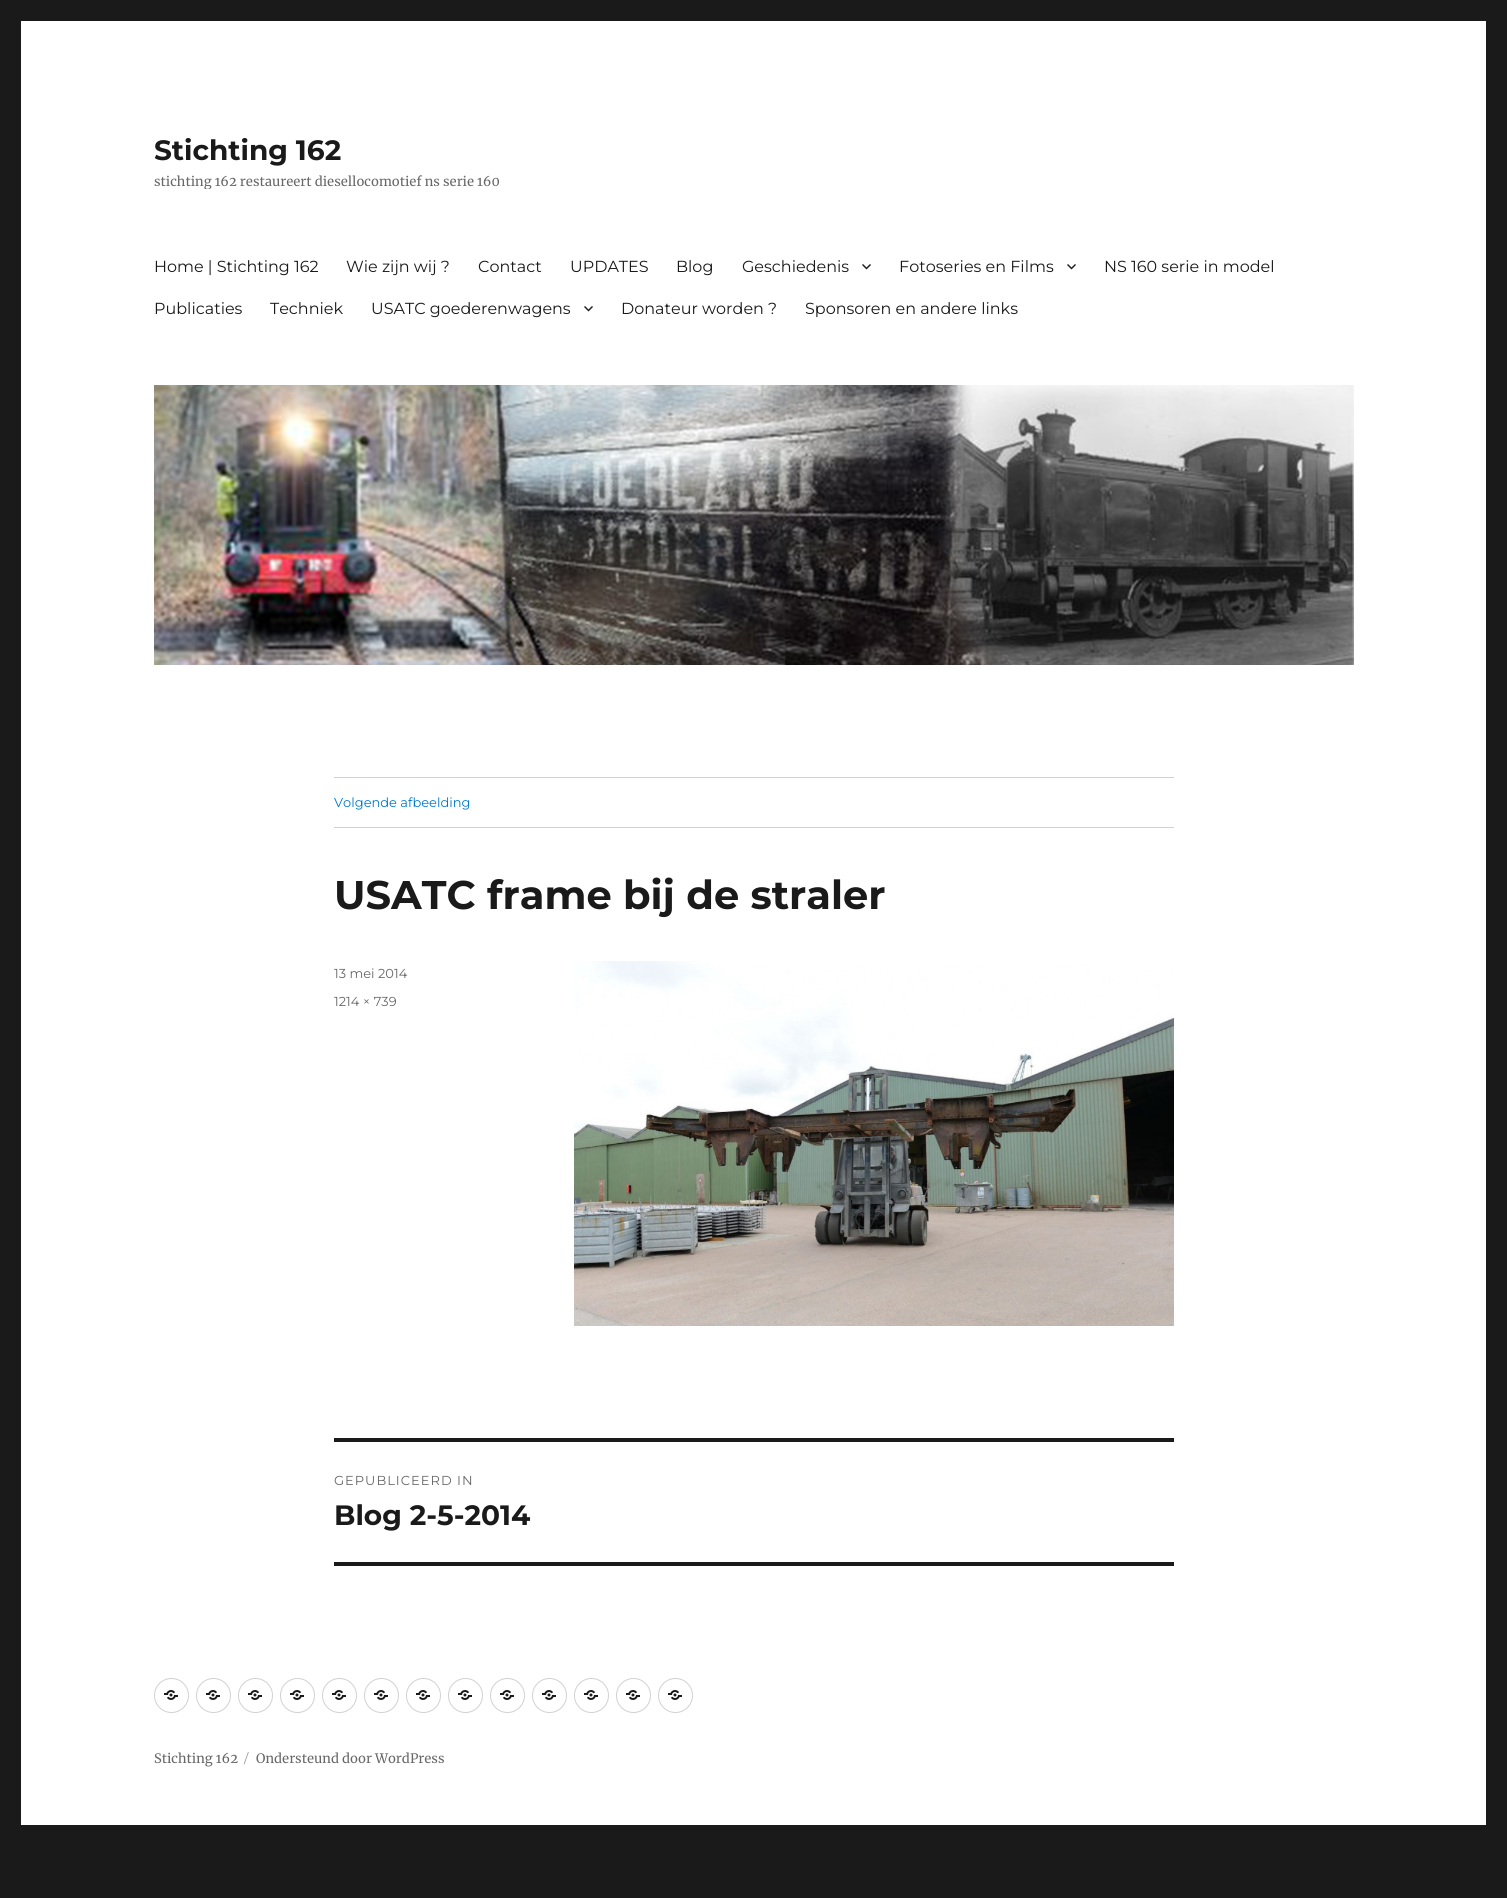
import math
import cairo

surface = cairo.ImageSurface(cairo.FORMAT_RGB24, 1507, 1898)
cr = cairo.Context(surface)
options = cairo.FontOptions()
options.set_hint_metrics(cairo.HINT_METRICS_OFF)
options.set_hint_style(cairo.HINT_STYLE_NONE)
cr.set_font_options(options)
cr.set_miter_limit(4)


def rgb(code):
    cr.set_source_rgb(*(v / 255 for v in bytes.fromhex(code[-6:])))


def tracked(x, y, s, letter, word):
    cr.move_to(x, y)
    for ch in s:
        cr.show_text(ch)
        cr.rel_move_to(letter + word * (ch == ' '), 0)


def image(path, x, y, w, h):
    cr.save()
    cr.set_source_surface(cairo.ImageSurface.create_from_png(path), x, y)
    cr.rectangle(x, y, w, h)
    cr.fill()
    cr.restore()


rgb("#1a1a1a")
cr.paint()
rgb("#ffffff")
cr.rectangle(21, 21, 1465, 1804)
cr.fill()
image("img/1.png", 862, 264, 9, 6)
image("img/1.png", 1067, 264, 9, 6)
image("img/1.png", 584, 306, 9, 6)
image("img/2.png", 154, 385, 1200, 280)
rgb("#d1d1d1")
cr.rectangle(334, 777, 840, 1)
cr.fill()
cr.rectangle(334, 827, 840, 1)
cr.fill()
image("img/3.png", 574, 961, 600, 365)
rgb("#1a1a1a")
cr.rectangle(334, 1438, 840, 4)
cr.fill()
cr.rectangle(334, 1562, 840, 4)
cr.fill()
cr.arc(171.5, 1695.5, 17, 0, 2 * math.pi)
rgb("#d1d1d1")
cr.set_line_width(1)
cr.stroke()
image("img/4.png", 164, 1690, 14, 10)
cr.arc(213.5, 1695.5, 17, 0, 2 * math.pi)
cr.stroke()
image("img/4.png", 206, 1690, 14, 10)
cr.arc(255.5, 1695.5, 17, 0, 2 * math.pi)
cr.stroke()
image("img/4.png", 248, 1690, 14, 10)
cr.arc(297.5, 1695.5, 17, 0, 2 * math.pi)
cr.stroke()
image("img/4.png", 290, 1690, 14, 10)
cr.arc(339.5, 1695.5, 17, 0, 2 * math.pi)
cr.stroke()
image("img/4.png", 332, 1690, 14, 10)
cr.arc(381.5, 1695.5, 17, 0, 2 * math.pi)
cr.stroke()
image("img/4.png", 374, 1690, 14, 10)
cr.arc(423.5, 1695.5, 17, 0, 2 * math.pi)
cr.stroke()
image("img/4.png", 416, 1690, 14, 10)
cr.arc(465.5, 1695.5, 17, 0, 2 * math.pi)
cr.stroke()
image("img/4.png", 458, 1690, 14, 10)
cr.arc(507.5, 1695.5, 17, 0, 2 * math.pi)
cr.stroke()
image("img/4.png", 500, 1690, 14, 10)
cr.arc(549.5, 1695.5, 17, 0, 2 * math.pi)
cr.stroke()
image("img/4.png", 542, 1690, 14, 10)
cr.arc(591.5, 1695.5, 17, 0, 2 * math.pi)
cr.stroke()
image("img/4.png", 584, 1690, 14, 10)
cr.arc(633.5, 1695.5, 17, 0, 2 * math.pi)
cr.stroke()
image("img/4.png", 626, 1690, 14, 10)
cr.arc(675.5, 1695.5, 17, 0, 2 * math.pi)
cr.stroke()
image("img/4.png", 668, 1690, 14, 10)
cr.select_font_face("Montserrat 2 Thin")
cr.set_font_size(28)
rgb("#1a1a1a")
cr.move_to(154, 160)
cr.show_text("Stichting 162")
cr.save()
cr.rectangle(154, 133, 345, 56)
cr.clip()
cr.select_font_face("Merriweather")
cr.set_font_size(13)
rgb("#686868")
cr.move_to(154, 186)
cr.show_text("stichting 162 restaureert diesellocomotief ns serie 160")
cr.restore()
cr.select_font_face("Montserrat Thin")
cr.set_font_size(16)
for x, y, s in [
    (154, 272, "Home | Stichting 162"),
    (346, 272, "Wie zijn wij ?"),
    (478, 272, "Contact"),
    (570, 272, "UPDATES"),
    (676, 272, "Blog"),
    (742, 272, "Geschiedenis"),
    (899, 272, "Fotoseries en Films"),
    (1104, 272, "NS 160 serie in model"),
    (154, 314, "Publicaties"),
    (270, 314, "Techniek"),
    (371, 314, "USATC goederenwagens"),
    (621, 314, "Donateur worden ?"),
    (805, 314, "Sponsoren en andere links"),
]:
    cr.move_to(x, y)
    cr.show_text(s)
cr.set_font_size(13)
rgb("#007acc")
cr.move_to(334, 807)
cr.show_text("Volgende afbeelding")
cr.select_font_face("Montserrat 2 Thin")
cr.set_font_size(40)
rgb("#1a1a1a")
cr.move_to(334, 909)
cr.show_text("USATC frame bij de straler")
cr.select_font_face("Montserrat Thin")
cr.set_font_size(13)
rgb("#686868")
cr.move_to(334, 978)
cr.show_text("13 mei 2014")
cr.move_to(334, 1006)
cr.show_text("1214 × 739")
tracked(334, 1485, "GEPUBLICEERD IN", 1, 0)
cr.select_font_face("Montserrat 2 Thin")
cr.set_font_size(28)
rgb("#1a1a1a")
cr.move_to(334, 1525)
cr.show_text("Blog 2-5-2014")
cr.select_font_face("Merriweather")
cr.set_font_size(13)
rgb("#686868")
cr.move_to(154, 1763)
cr.show_text("Stichting 162")
cr.select_font_face("Montserrat Thin")
rgb("#959595")
cr.move_to(244, 1763)
cr.show_text("/")
cr.select_font_face("Merriweather")
rgb("#686868")
cr.move_to(256, 1763)
cr.show_text("Ondersteund door WordPress")
surface.write_to_png("page.png")
